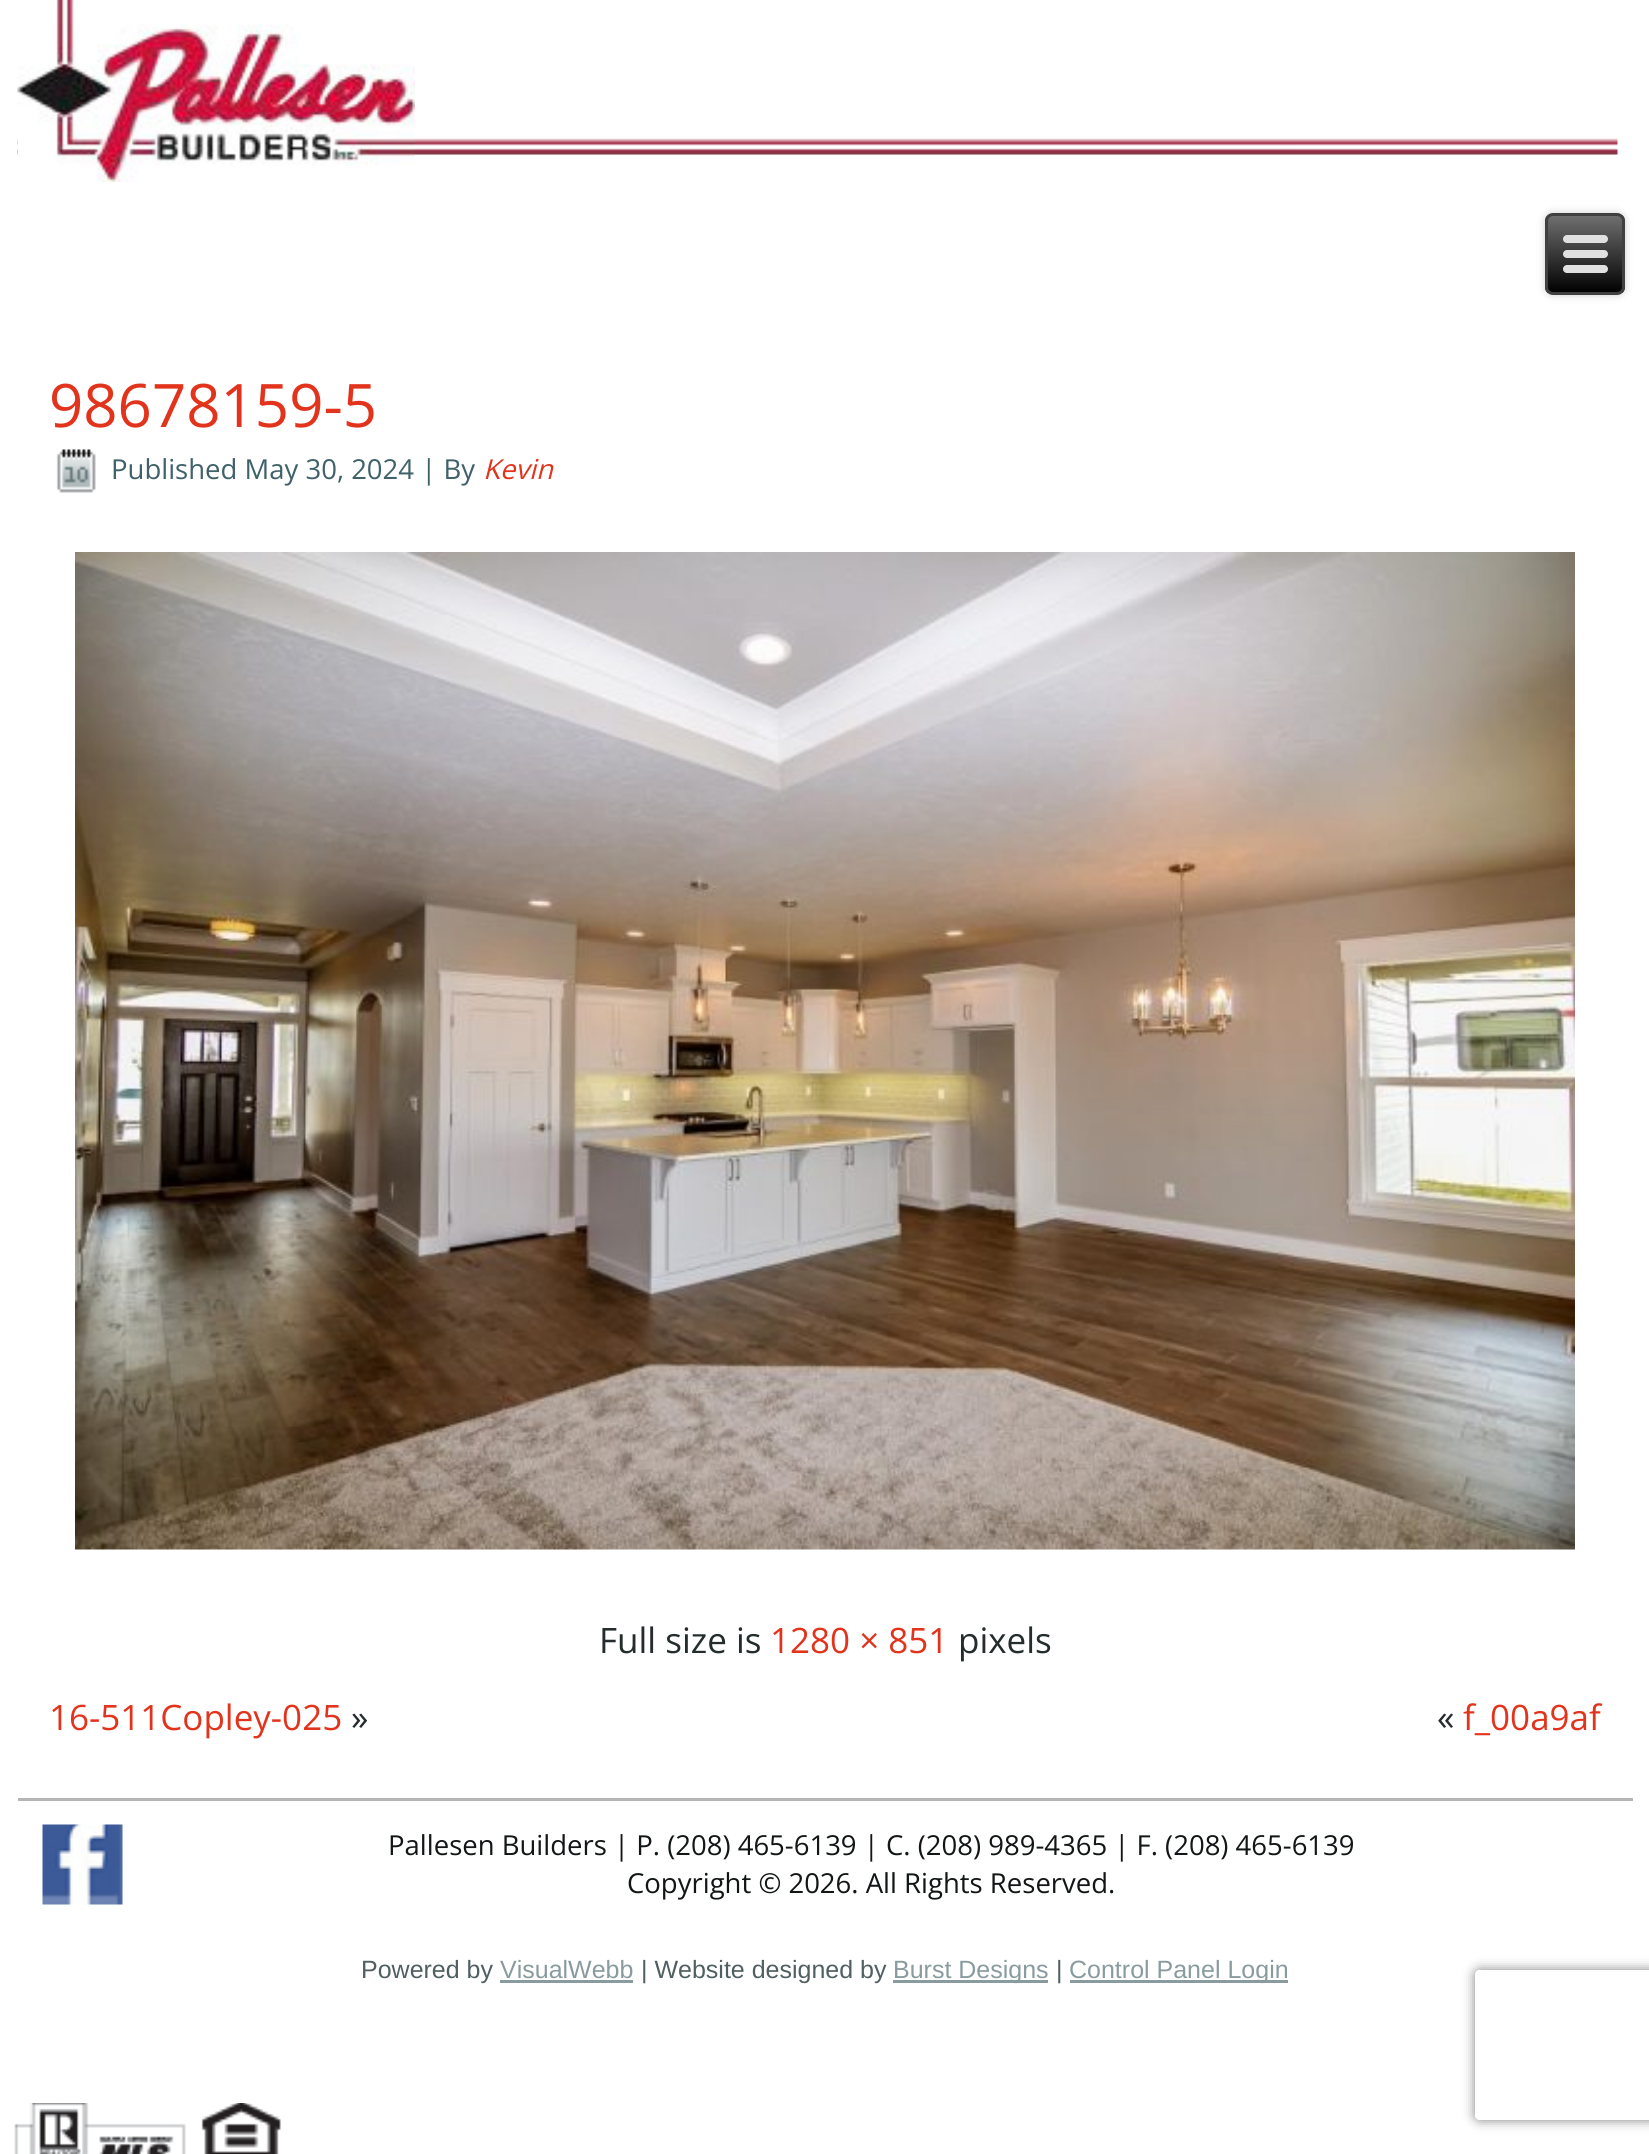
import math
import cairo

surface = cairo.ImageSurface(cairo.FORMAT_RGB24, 1649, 2154)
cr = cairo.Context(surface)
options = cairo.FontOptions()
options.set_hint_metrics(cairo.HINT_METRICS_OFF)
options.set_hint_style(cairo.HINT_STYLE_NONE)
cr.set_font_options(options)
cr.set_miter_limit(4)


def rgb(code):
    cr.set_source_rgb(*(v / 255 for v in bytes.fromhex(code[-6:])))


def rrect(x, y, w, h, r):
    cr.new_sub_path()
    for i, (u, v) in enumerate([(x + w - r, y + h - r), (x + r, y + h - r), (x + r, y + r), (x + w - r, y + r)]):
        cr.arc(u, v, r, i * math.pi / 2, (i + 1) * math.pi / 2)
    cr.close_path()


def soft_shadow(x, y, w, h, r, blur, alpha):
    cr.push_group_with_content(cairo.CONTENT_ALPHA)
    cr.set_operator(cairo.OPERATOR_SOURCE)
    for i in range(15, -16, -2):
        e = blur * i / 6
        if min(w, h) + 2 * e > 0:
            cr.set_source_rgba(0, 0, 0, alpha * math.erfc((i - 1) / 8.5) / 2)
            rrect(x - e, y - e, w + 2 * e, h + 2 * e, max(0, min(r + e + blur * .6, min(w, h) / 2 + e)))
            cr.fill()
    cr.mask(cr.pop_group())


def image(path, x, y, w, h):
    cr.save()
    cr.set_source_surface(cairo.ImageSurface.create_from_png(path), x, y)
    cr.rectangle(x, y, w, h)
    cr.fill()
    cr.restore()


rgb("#ffffff")
cr.paint()
image("img/1.png", 17, 138, 1601, 17)
image("img/2.png", 17, 0, 398, 182)
rgb("#000000")
soft_shadow(1545, 213, 80, 82, 8, 4, 0.2)
cr.save()
rrect(1545, 213, 80, 82, 8)
cr.clip()
gradient = cairo.LinearGradient(1585, 215, 1585, 293)
gradient.add_color_stop_rgba(0, 0.439, 0.439, 0.439, 1)
gradient.add_color_stop_rgba(1, 0, 0, 0, 1)
cr.set_source(gradient)
cr.rectangle(1545, 215, 80, 78)
cr.fill()
cr.restore()
rrect(1546.5, 214.5, 77, 79, 6.5)
rgb("#404040")
cr.set_line_width(3)
cr.stroke()
rgb("#e0e0e0")
rrect(1563, 235, 45, 8, 4)
cr.fill()
rrect(1563, 250, 45, 8, 4)
cr.fill()
rrect(1563, 265, 45, 8, 4)
cr.fill()
image("img/3.png", 56, 449, 40, 44)
image("img/4.png", 75, 552, 1500, 998)
rgb("#b6b5b5")
cr.rectangle(18, 1798, 1615, 3)
cr.fill()
image("img/5.png", 42, 1824, 81, 81)
for x, y, w, h, color in [
    (500, 1980, 133, 3, "#899b9f"),
    (893, 1980, 155, 3, "#899b9f"),
    (1070, 1980, 218, 3, "#899b9f"),
]:
    rgb(color)
    cr.rectangle(x, y, w, h)
    cr.fill()
image("img/6.png", 14, 2103, 267, 51)
cr.save()
cr.set_fill_rule(cairo.FILL_RULE_EVEN_ODD)
cr.new_path()
cr.move_to(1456, 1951)
cr.line_to(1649, 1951)
cr.line_to(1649, 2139)
cr.line_to(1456, 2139)
cr.close_path()
cr.move_to(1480, 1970)
cr.line_to(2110, 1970)
cr.curve_to(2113, 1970, 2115, 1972, 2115, 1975)
cr.line_to(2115, 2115)
cr.curve_to(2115, 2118, 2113, 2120, 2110, 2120)
cr.line_to(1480, 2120)
cr.curve_to(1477, 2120, 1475, 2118, 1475, 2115)
cr.line_to(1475, 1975)
cr.curve_to(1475, 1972, 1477, 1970, 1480, 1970)
cr.close_path()
cr.clip()
rgb("#808080")
soft_shadow(1475, 1970, 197, 150, 5, 6, 1)
cr.restore()
cr.select_font_face("Open Sans")
cr.set_font_size(60)
rgb("#e2341d")
cr.move_to(49, 427)
cr.show_text("98678159-5")
cr.set_font_size(27.5)
rgb("#3f6169")
cr.move_to(111, 479)
cr.show_text("Published May 30, 2024 | By")
cr.select_font_face("Open Sans", cairo.FONT_SLANT_ITALIC)
rgb("#e2341d")
cr.move_to(483, 479)
cr.show_text("Kevin")
cr.select_font_face("Open Sans")
cr.set_font_size(35)
rgb("#252c2d")
cr.move_to(599, 1653)
cr.show_text("Full size is")
rgb("#e2341d")
cr.move_to(770, 1653)
cr.show_text("1280 × 851")
rgb("#252c2d")
cr.move_to(958, 1653)
cr.show_text("pixels")
rgb("#e2341d")
cr.move_to(49, 1730)
cr.show_text("16-511Copley-025")
rgb("#252c2d")
cr.move_to(351, 1730)
cr.show_text("»")
cr.move_to(1437, 1730)
cr.show_text("«")
rgb("#e2341d")
cr.move_to(1463, 1730)
cr.show_text("f_00a9af")
cr.set_font_size(27.5)
rgb("#121616")
cr.move_to(388, 1855)
cr.show_text("Pallesen Builders | P. (208) 465-6139 | C. (208) 989-4365 | F. (208) 465-6139")
cr.move_to(627, 1893)
cr.show_text("Copyright © 2026. All Rights Reserved.")
cr.select_font_face("Liberation Sans")
cr.set_font_size(25)
rgb("#505f62")
cr.move_to(361, 1978)
cr.show_text("Powered by")
rgb("#899b9f")
cr.move_to(500, 1978)
cr.show_text("VisualWebb")
rgb("#505f62")
cr.move_to(641, 1978)
cr.show_text("| Website designed by")
rgb("#899b9f")
cr.move_to(893, 1978)
cr.show_text("Burst Designs")
rgb("#505f62")
cr.move_to(1056, 1978)
cr.show_text("|")
rgb("#899b9f")
cr.move_to(1069, 1978)
cr.show_text("Control Panel Login")
surface.write_to_png("page.png")
